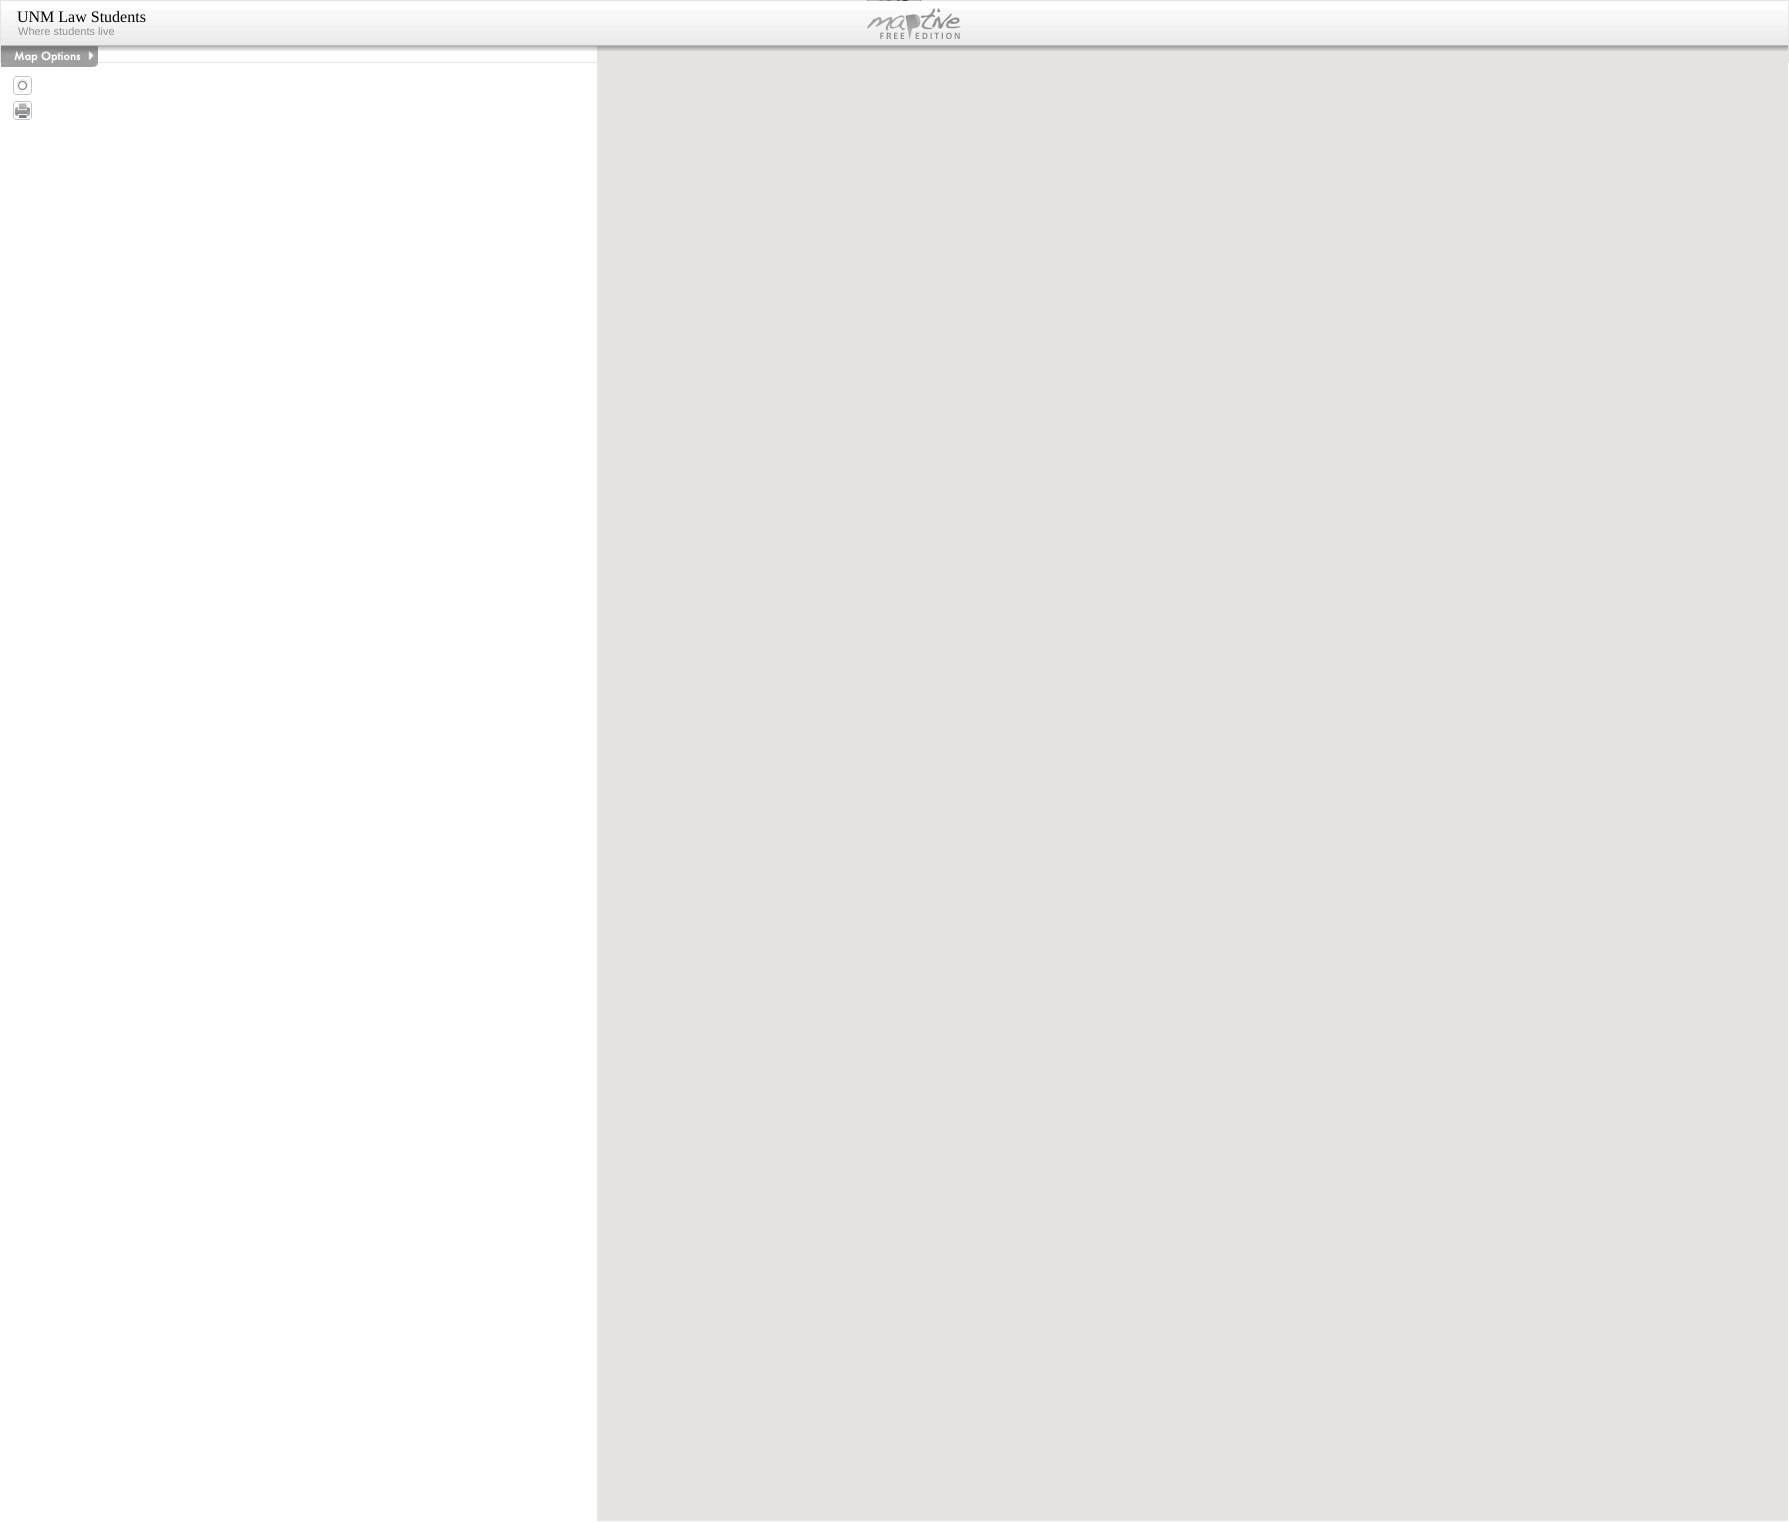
import math
import cairo

surface = cairo.ImageSurface(cairo.FORMAT_RGB24, 1789, 1522)
cr = cairo.Context(surface)
options = cairo.FontOptions()
options.set_hint_metrics(cairo.HINT_METRICS_OFF)
options.set_hint_style(cairo.HINT_STYLE_NONE)
cr.set_font_options(options)
cr.set_miter_limit(4)


def rgb(code):
    cr.set_source_rgb(*(v / 255 for v in bytes.fromhex(code[-6:])))


def image(path, x, y, w, h):
    cr.save()
    cr.set_source_surface(cairo.ImageSurface.create_from_png(path), x, y)
    cr.rectangle(x, y, w, h)
    cr.fill()
    cr.restore()


rgb("#ffffff")
cr.paint()
cr.rectangle(0.5, 0.5, 1788, 62)
rgb("#e5e5e5")
cr.set_line_width(1)
cr.stroke()
cr.set_source_rgba(0.667, 0.667, 0.667, 0.7)
cr.rectangle(867, 0, 54, 1)
cr.fill()
cr.set_source_rgba(0.439, 0.439, 0.439, 0.7)
cr.rectangle(920, 0, 1, 1)
cr.fill()
cr.rectangle(867, 0, 1, 1)
cr.fill()
image("img/1.png", 878, 0, 32, 1)
image("img/2.png", 1, 10, 1787, 35)
rgb("#bababa")
cr.rectangle(1, 45, 1787, 1)
cr.fill()
image("img/3.png", 867, 8, 94, 32)
image("img/4.png", 1, 46, 97, 21)
rgb("#e5e3df")
cr.rectangle(597, 46, 1191, 1474)
cr.fill()
image("img/5.png", 98, 46, 1690, 5)
image("img/6.png", 13, 76, 19, 19)
rgb("#e5e5e5")
cr.rectangle(597, 1520, 1191, 1)
cr.fill()
image("img/7.png", 13, 101, 19, 19)
cr.select_font_face("Liberation Serif")
cr.set_font_size(16)
rgb("#000000")
cr.move_to(17, 22)
cr.show_text("UNM Law Students")
cr.select_font_face("Liberation Sans")
cr.set_font_size(11)
rgb("#909090")
cr.move_to(18, 35)
cr.show_text("Where students live")
surface.write_to_png("page.png")
